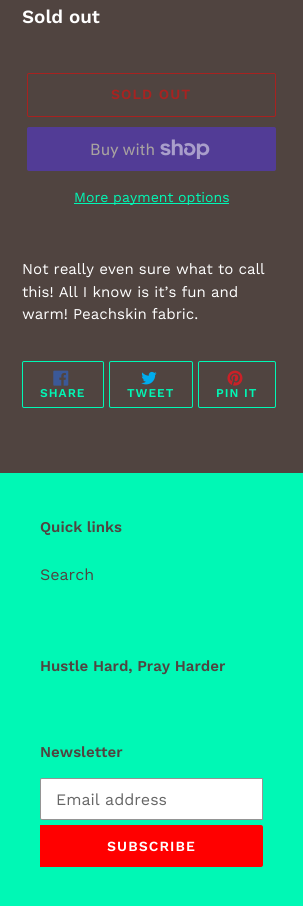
import math
import cairo

surface = cairo.ImageSurface(cairo.FORMAT_RGB24, 303, 906)
cr = cairo.Context(surface)
options = cairo.FontOptions()
options.set_hint_metrics(cairo.HINT_METRICS_OFF)
options.set_hint_style(cairo.HINT_STYLE_NONE)
cr.set_font_options(options)
cr.set_miter_limit(4)


def rgb(code):
    cr.set_source_rgb(*(v / 255 for v in bytes.fromhex(code[-6:])))


def tracked(x, y, s, letter, word):
    cr.move_to(x, y)
    for ch in s:
        cr.show_text(ch)
        cr.rel_move_to(letter + word * (ch == ' '), 0)


def rrect(x, y, w, h, r):
    cr.new_sub_path()
    for i, (u, v) in enumerate([(x + w - r, y + h - r), (x + r, y + h - r), (x + r, y + r), (x + w - r, y + r)]):
        cr.arc(u, v, r, i * math.pi / 2, (i + 1) * math.pi / 2)
    cr.close_path()


def image(path, x, y, w, h):
    cr.save()
    cr.set_source_surface(cairo.ImageSurface.create_from_png(path), x, y)
    cr.rectangle(x, y, w, h)
    cr.fill()
    cr.restore()


rgb("#504440")
cr.paint()
rrect(27.5, 73.5, 248, 43, 1.5)
rgb("#a82220")
cr.set_line_width(1)
cr.stroke()
rgb("#523c96")
rrect(27, 127, 249, 44, 2)
cr.fill()
image("img/1.png", 160, 139, 50, 20)
rgb("#00f8b5")
cr.rectangle(74, 203, 155, 1)
cr.fill()
rrect(22.5, 361.5, 81, 46, 1.5)
cr.stroke()
image("img/2.png", 53, 370, 16, 16)
rrect(109.5, 361.5, 83, 46, 1.5)
cr.stroke()
image("img/3.png", 141, 371, 16, 14)
rrect(198.5, 361.5, 77, 46, 1.5)
cr.stroke()
image("img/4.png", 227, 370, 16, 16)
cr.rectangle(0, 473, 303, 433)
cr.fill()
rgb("#ffffff")
cr.new_path()
cr.move_to(42, 778.5)
cr.line_to(262.5, 778.5)
cr.line_to(262.5, 819.5)
cr.line_to(42, 819.5)
cr.curve_to(41, 819.5, 40.5, 819, 40.5, 818)
cr.line_to(40.5, 780)
cr.curve_to(40.5, 779, 41, 778.5, 42, 778.5)
cr.close_path()
cr.fill_preserve()
rgb("#949494")
cr.stroke()
rgb("#ff0000")
cr.new_path()
cr.move_to(40, 825)
cr.line_to(261, 825)
cr.curve_to(262, 825, 263, 826, 263, 827)
cr.line_to(263, 865)
cr.curve_to(263, 866, 262, 867, 261, 867)
cr.line_to(40, 867)
cr.close_path()
cr.fill()
cr.select_font_face("Work Sans SemiBold")
cr.set_font_size(18.75)
rgb("#ffffff")
cr.move_to(22, 23)
cr.show_text("Sold out")
cr.set_font_size(14)
rgb("#a82220")
tracked(111, 99, "SOLD OUT", 1.1, 0)
cr.select_font_face("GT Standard")
cr.set_font_size(16)
rgb("#a8a2a0")
cr.move_to(90, 155)
cr.show_text("Buy with")
cr.select_font_face("Work Sans")
cr.set_font_size(14)
rgb("#00f8b5")
cr.move_to(74, 202)
cr.show_text("More payment options")
cr.set_font_size(15)
rgb("#ffffff")
for x, y, s in [
    (22, 274, "Not really even sure what to call"),
    (22, 297, "this! All I know is it’s fun and"),
    (22, 319, "warm! Peachskin fabric."),
]:
    cr.move_to(x, y)
    cr.show_text(s)
cr.select_font_face("Work Sans SemiBold")
cr.set_font_size(12)
rgb("#00f8b5")
for x, y, s in [
    (40, 397, "SHARE"),
    (127, 397, "TWEET"),
    (216, 397, "PIN IT"),
]:
    tracked(x, y, s, 1, 0)
cr.set_font_size(15)
rgb("#504440")
cr.move_to(40, 532)
cr.show_text("Quick links")
cr.select_font_face("Work Sans")
cr.set_font_size(16)
cr.move_to(40, 580)
cr.show_text("Search")
cr.select_font_face("Work Sans SemiBold")
cr.set_font_size(15)
cr.move_to(40, 671)
cr.show_text("Hustle Hard, Pray Harder")
cr.move_to(40, 757)
cr.show_text("Newsletter")
cr.select_font_face("Work Sans")
cr.set_font_size(16)
rgb("#666666")
cr.move_to(56, 805)
cr.show_text("Email address")
cr.select_font_face("Work Sans SemiBold")
cr.set_font_size(14)
rgb("#ffffff")
tracked(107, 851, "SUBSCRIBE", 1.1, 0)
surface.write_to_png("page.png")
